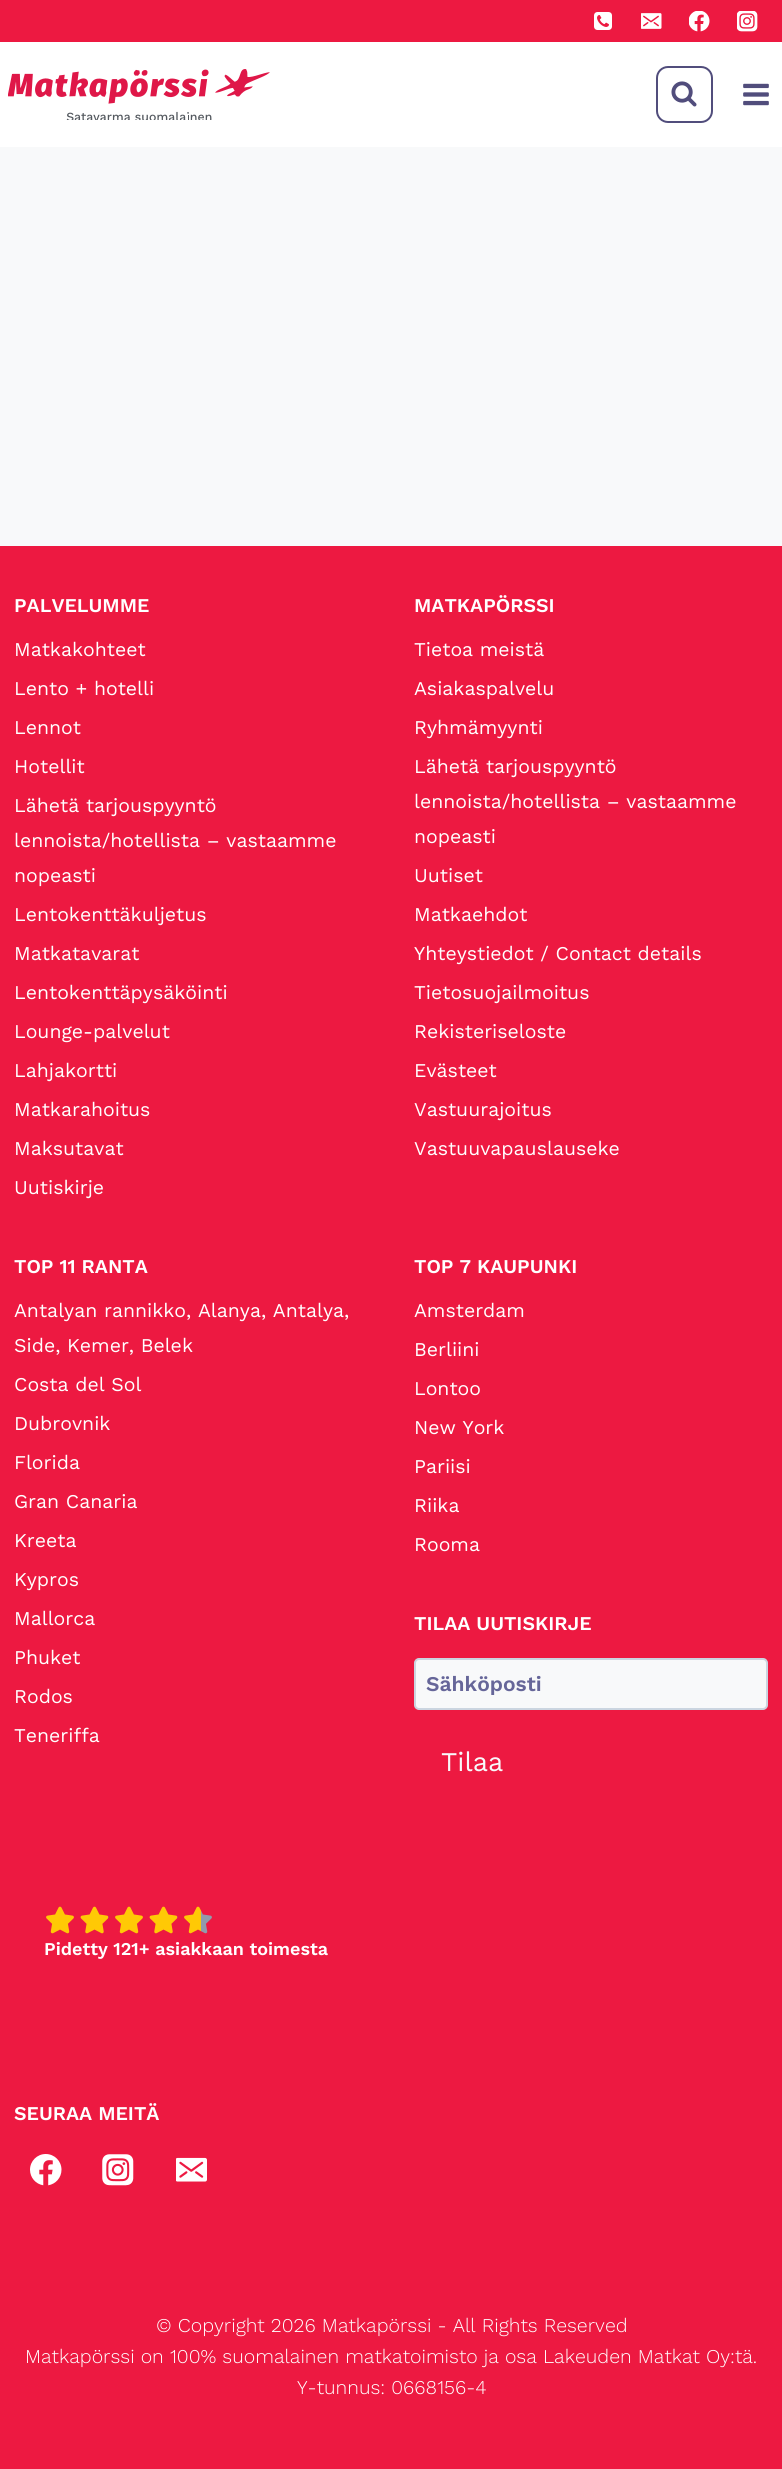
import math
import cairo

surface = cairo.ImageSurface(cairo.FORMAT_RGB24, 782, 2469)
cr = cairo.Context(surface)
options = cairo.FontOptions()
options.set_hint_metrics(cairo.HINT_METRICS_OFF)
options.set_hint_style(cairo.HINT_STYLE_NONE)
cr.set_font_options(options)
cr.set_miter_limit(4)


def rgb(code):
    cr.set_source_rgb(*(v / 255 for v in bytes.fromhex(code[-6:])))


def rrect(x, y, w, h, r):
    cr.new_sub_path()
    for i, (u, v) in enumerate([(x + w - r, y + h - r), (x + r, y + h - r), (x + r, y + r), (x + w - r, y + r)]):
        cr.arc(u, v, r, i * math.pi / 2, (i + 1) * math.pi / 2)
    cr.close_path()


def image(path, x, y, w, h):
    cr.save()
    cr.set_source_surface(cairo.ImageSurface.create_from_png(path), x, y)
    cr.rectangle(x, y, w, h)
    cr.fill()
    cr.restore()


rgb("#f8f9fa")
cr.paint()
rgb("#ffffff")
cr.rectangle(0, 42, 782, 105)
cr.fill()
rgb("#ed1941")
cr.rectangle(0, 0, 782, 42)
cr.fill()
image("img/1.png", 594, 12, 18, 18)
image("img/2.png", 641, 13, 21, 16)
image("img/3.png", 689, 11, 21, 21)
image("img/4.png", 737, 11, 21, 21)
image("img/5.png", 8, 69, 262, 51)
rrect(657, 67, 55, 55, 11)
rgb("#514d7c")
cr.stroke()
image("img/6.png", 671, 81, 26, 26)
image("img/7.png", 743, 83, 26, 23)
rgb("#ed1941")
cr.rectangle(0, 546, 782, 1923)
cr.fill()
rgb("#f8f9fa")
rrect(415, 1659, 352, 50, 4)
cr.fill_preserve()
rgb("#cbd5e0")
cr.stroke()
image("img/8.png", 46, 1906, 28, 28)
image("img/9.png", 80, 1906, 29, 28)
image("img/8.png", 115, 1906, 28, 28)
image("img/9.png", 149, 1906, 29, 28)
image("img/10.png", 184, 1906, 28, 28)
image("img/11.png", 30, 2154, 32, 32)
image("img/12.png", 102, 2154, 32, 32)
image("img/13.png", 176, 2157, 31, 25)
cr.select_font_face("Work Sans SemiBold")
cr.set_font_size(19.5)
rgb("#ffffff")
cr.move_to(14, 612)
cr.show_text("PALVELUMME")
cr.select_font_face("Work Sans")
for x, y, s in [
    (14, 656, "Matkakohteet"),
    (14, 695, "Lento + hotelli"),
    (14, 734, "Lennot"),
    (14, 773, "Hotellit"),
    (14, 812, "Lähetä tarjouspyyntö"),
    (14, 847, "lennoista/hotellista – vastaamme"),
    (14, 882, "nopeasti"),
    (14, 921, "Lentokenttäkuljetus"),
    (14, 960, "Matkatavarat"),
    (14, 999, "Lentokenttäpysäköinti"),
    (14, 1038, "Lounge-palvelut"),
    (14, 1077, "Lahjakortti"),
    (14, 1116, "Matkarahoitus"),
    (14, 1155, "Maksutavat"),
    (14, 1194, "Uutiskirje"),
]:
    cr.move_to(x, y)
    cr.show_text(s)
cr.select_font_face("Work Sans SemiBold")
cr.move_to(414, 612)
cr.show_text("MATKAPÖRSSI")
cr.select_font_face("Work Sans")
for x, y, s in [
    (414, 656, "Tietoa meistä"),
    (414, 695, "Asiakaspalvelu"),
    (414, 734, "Ryhmämyynti"),
    (414, 773, "Lähetä tarjouspyyntö"),
    (414, 808, "lennoista/hotellista – vastaamme"),
    (414, 843, "nopeasti"),
    (414, 882, "Uutiset"),
    (414, 921, "Matkaehdot"),
    (414, 960, "Yhteystiedot / Contact details"),
    (414, 999, "Tietosuojailmoitus"),
    (414, 1038, "Rekisteriseloste"),
    (414, 1077, "Evästeet"),
    (414, 1116, "Vastuurajoitus"),
    (414, 1155, "Vastuuvapauslauseke"),
]:
    cr.move_to(x, y)
    cr.show_text(s)
cr.select_font_face("Work Sans SemiBold")
cr.move_to(14, 1273)
cr.show_text("TOP 11 RANTA")
cr.select_font_face("Work Sans")
for x, y, s in [
    (14, 1317, "Antalyan rannikko, Alanya, Antalya,"),
    (14, 1352, "Side, Kemer, Belek"),
    (14, 1391, "Costa del Sol"),
    (14, 1430, "Dubrovnik"),
    (14, 1469, "Florida"),
    (14, 1508, "Gran Canaria"),
    (14, 1547, "Kreeta"),
    (14, 1586, "Kypros"),
    (14, 1625, "Mallorca"),
    (14, 1664, "Phuket"),
    (14, 1703, "Rodos"),
    (14, 1742, "Teneriffa"),
]:
    cr.move_to(x, y)
    cr.show_text(s)
cr.select_font_face("Work Sans SemiBold")
cr.move_to(414, 1273)
cr.show_text("TOP 7 KAUPUNKI")
cr.select_font_face("Work Sans")
for x, y, s in [
    (414, 1317, "Amsterdam"),
    (414, 1356, "Berliini"),
    (414, 1395, "Lontoo"),
    (414, 1434, "New York"),
    (414, 1473, "Pariisi"),
    (414, 1512, "Riika"),
    (414, 1551, "Rooma"),
]:
    cr.move_to(x, y)
    cr.show_text(s)
cr.select_font_face("Work Sans SemiBold")
cr.move_to(414, 1630)
cr.show_text("TILAA UUTISKIRJE")
cr.save()
cr.rectangle(426, 1671, 330, 24)
cr.clip()
cr.set_font_size(21)
rgb("#666699")
cr.move_to(426, 1691)
cr.show_text("Sähköposti")
cr.restore()
cr.select_font_face("Work Sans")
cr.set_font_size(27)
rgb("#f8f9fa")
cr.move_to(441, 1771)
cr.show_text("Tilaa")
cr.select_font_face("Work Sans SemiBold")
cr.set_font_size(18)
rgb("#ffffff")
cr.move_to(44, 1955)
cr.show_text("Pidetty 121+ asiakkaan toimesta")
cr.set_font_size(19.5)
cr.move_to(14, 2120)
cr.show_text("SEURAA MEITÄ")
cr.select_font_face("Work Sans Light")
for x, y, s in [
    (156, 2332, "© Copyright 2026 Matkapörssi - All Rights Reserved"),
    (25, 2363, "Matkapörssi on 100% suomalainen matkatoimisto ja osa Lakeuden Matkat Oy:tä."),
    (297, 2394, "Y-tunnus: 0668156-4"),
]:
    cr.move_to(x, y)
    cr.show_text(s)
surface.write_to_png("page.png")
